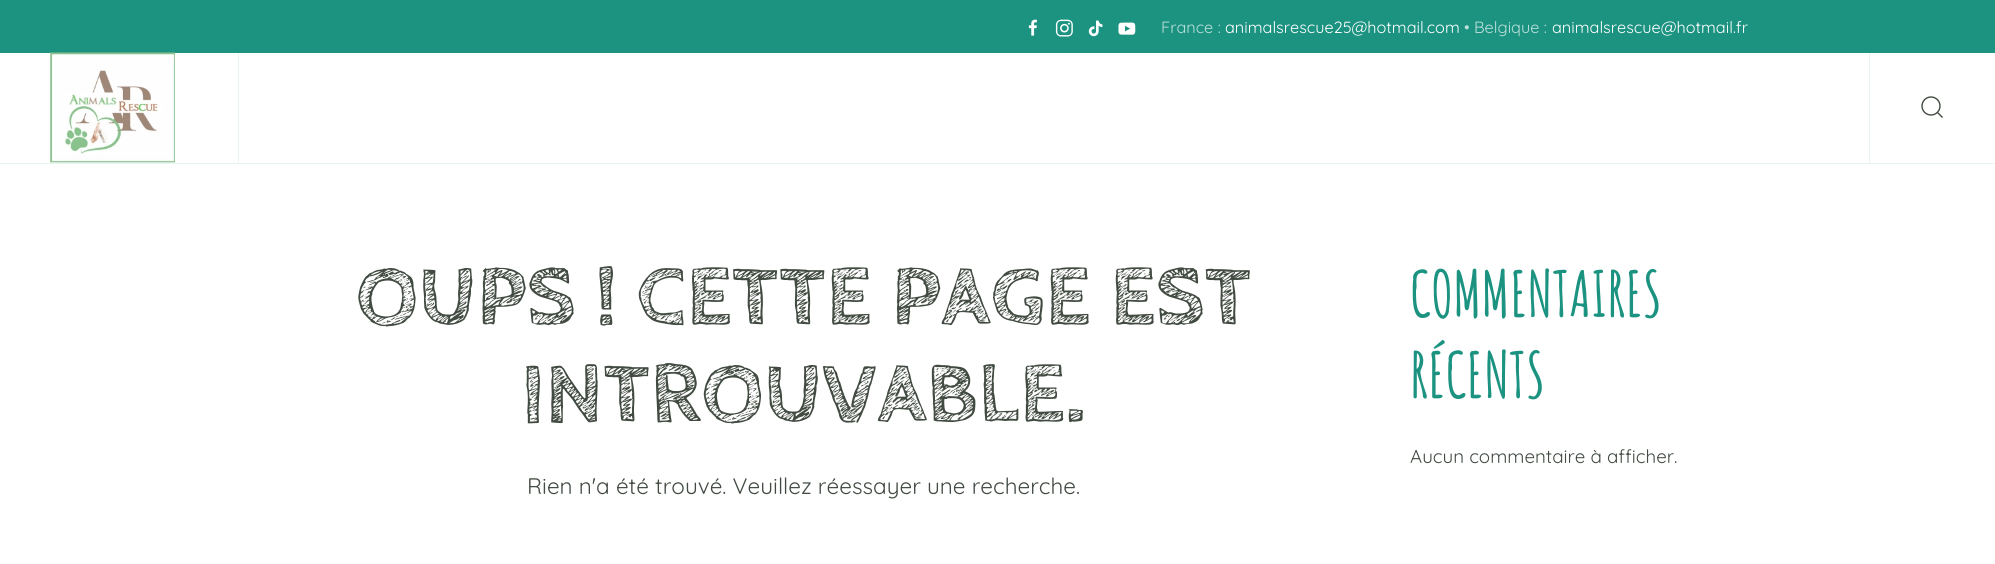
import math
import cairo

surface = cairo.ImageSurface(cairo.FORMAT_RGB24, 1995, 564)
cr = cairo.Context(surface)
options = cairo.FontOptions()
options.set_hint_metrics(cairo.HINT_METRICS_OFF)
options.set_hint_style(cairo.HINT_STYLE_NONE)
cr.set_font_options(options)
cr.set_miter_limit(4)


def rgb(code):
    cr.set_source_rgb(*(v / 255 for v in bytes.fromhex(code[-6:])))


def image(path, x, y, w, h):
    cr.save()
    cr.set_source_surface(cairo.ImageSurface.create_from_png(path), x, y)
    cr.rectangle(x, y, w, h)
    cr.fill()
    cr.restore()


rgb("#ffffff")
cr.paint()
rgb("#1c9381")
cr.rectangle(0, 0, 1995, 53)
cr.fill()
image("img/1.png", 1028, 19, 9, 17)
image("img/2.png", 1055, 19, 18, 18)
image("img/3.png", 1088, 20, 15, 17)
image("img/4.png", 1118, 22, 18, 13)
rgb("#e8f4f2")
cr.rectangle(0, 163, 1995, 1)
cr.fill()
cr.rectangle(238, 53, 1, 110)
cr.fill()
image("img/5.png", 50, 52, 125, 111)
cr.rectangle(1869, 53, 1, 110)
cr.fill()
cr.arc(1931, 106, 9, 0, 2 * math.pi)
rgb("#424b42")
cr.set_line_width(1.4)
cr.stroke()
cr.new_path()
cr.move_to(1937.5, 112.5)
cr.line_to(1942.5, 117.5)
cr.close_path()
cr.stroke()
cr.select_font_face("Quicksand Light")
cr.set_font_size(16.25)
rgb("#bbdfd9")
cr.move_to(1161, 33)
cr.show_text("France :")
rgb("#ffffff")
cr.move_to(1225, 33)
cr.show_text("animalsrescue25@hotmail.com")
rgb("#bbdfd9")
cr.move_to(1464, 33)
cr.show_text("• Belgique :")
rgb("#ffffff")
cr.move_to(1552, 33)
cr.show_text("animalsrescue@hotmail.fr")
cr.select_font_face("Cabin Sketch", cairo.FONT_SLANT_NORMAL, cairo.FONT_WEIGHT_BOLD)
cr.set_font_size(87.5)
rgb("#424b42")
cr.move_to(356, 324)
cr.show_text("OUPS ! CETTE PAGE EST")
cr.move_to(521, 421)
cr.show_text("INTROUVABLE.")
cr.select_font_face("Quicksand Light")
cr.set_font_size(22.5)
cr.move_to(527, 494)
cr.show_text("Rien n'a été trouvé. Veuillez réessayer une recherche.")
cr.select_font_face("Amatic SC", cairo.FONT_SLANT_NORMAL, cairo.FONT_WEIGHT_BOLD)
cr.set_font_size(62.5)
rgb("#1c9381")
cr.move_to(1410, 317)
cr.show_text("COMMENTAIRES")
cr.move_to(1410, 398)
cr.show_text("RÉCENTS")
cr.select_font_face("Quicksand Light")
cr.set_font_size(18.75)
rgb("#424b42")
cr.move_to(1410, 463)
cr.show_text("Aucun commentaire à afficher.")
surface.write_to_png("page.png")
